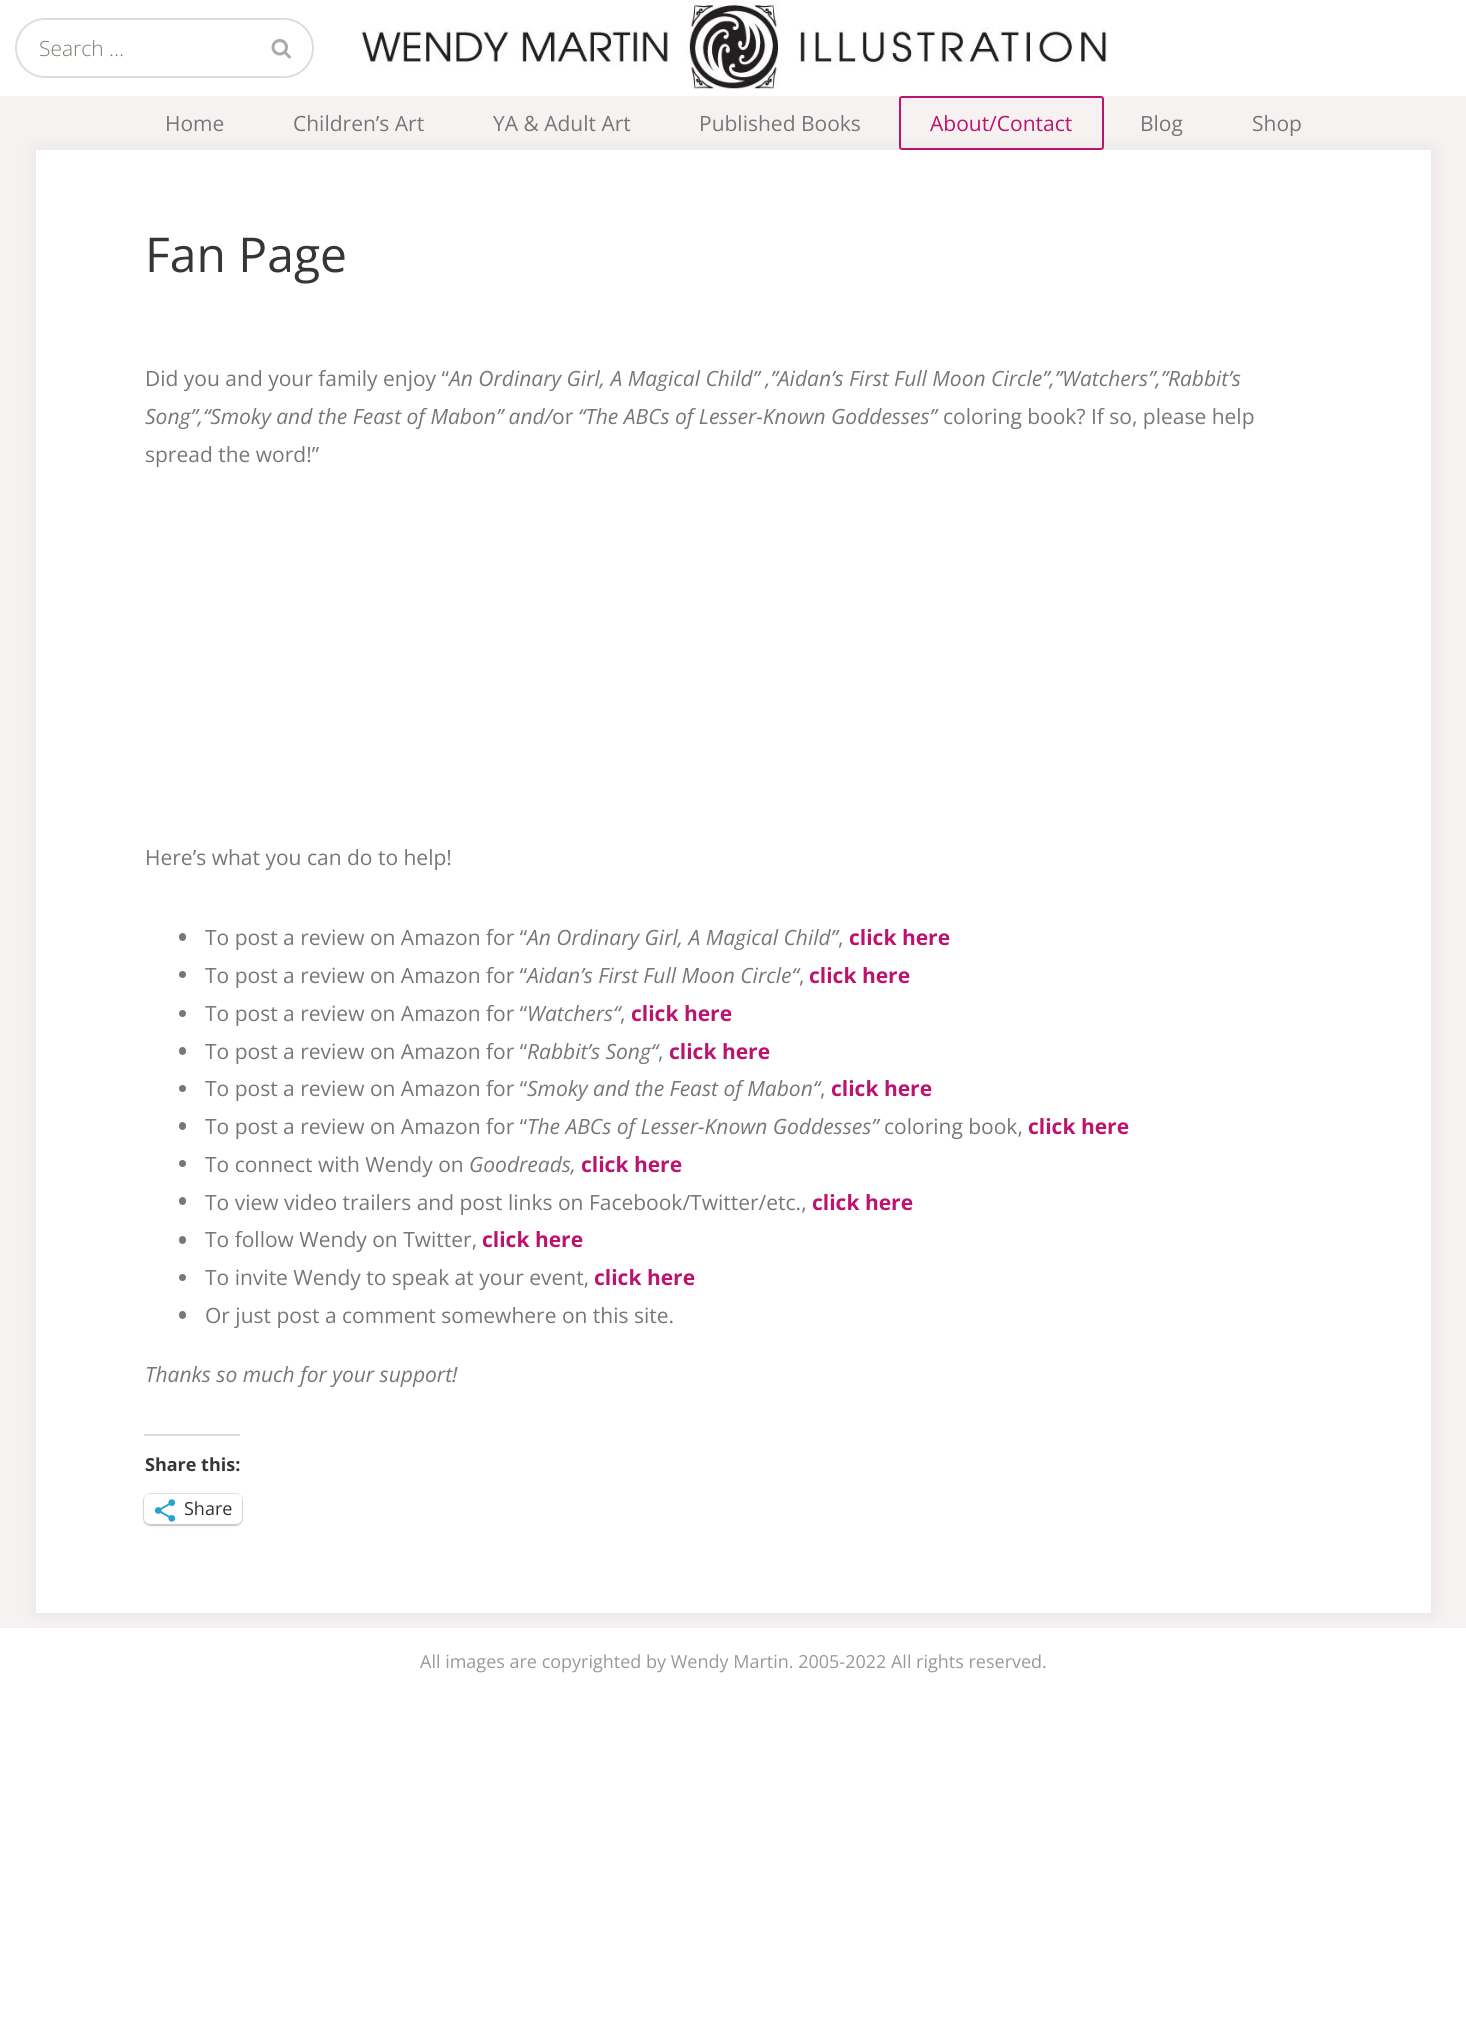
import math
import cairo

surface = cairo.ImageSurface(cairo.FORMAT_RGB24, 1466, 2037)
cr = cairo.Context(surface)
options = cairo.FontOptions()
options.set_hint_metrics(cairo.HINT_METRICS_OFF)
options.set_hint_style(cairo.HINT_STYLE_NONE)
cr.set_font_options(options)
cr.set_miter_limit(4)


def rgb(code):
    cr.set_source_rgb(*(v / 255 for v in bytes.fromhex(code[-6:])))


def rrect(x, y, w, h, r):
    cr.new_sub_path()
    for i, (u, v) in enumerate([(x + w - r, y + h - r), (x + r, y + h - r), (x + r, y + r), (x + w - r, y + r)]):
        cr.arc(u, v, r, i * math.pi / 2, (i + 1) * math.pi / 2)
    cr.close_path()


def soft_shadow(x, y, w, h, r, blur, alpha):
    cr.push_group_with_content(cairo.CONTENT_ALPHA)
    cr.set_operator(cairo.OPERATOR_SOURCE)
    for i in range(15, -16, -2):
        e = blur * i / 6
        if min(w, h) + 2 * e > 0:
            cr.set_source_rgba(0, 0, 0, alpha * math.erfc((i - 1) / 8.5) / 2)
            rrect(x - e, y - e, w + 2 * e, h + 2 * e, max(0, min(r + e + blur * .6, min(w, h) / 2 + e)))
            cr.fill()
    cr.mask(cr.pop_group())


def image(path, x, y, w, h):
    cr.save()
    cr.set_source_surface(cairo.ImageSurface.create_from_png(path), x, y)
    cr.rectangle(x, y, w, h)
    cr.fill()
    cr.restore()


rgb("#ffffff")
cr.paint()
rrect(16, 19, 297, 58, 29)
rgb("#dddddd")
cr.stroke()
image("img/1.png", 271, 39, 20, 20)
image("img/2.png", 361, 0, 747, 89)
rgb("#f7f2f2")
cr.rectangle(0, 96, 1466, 1532)
cr.fill()
rgb("#000000")
soft_shadow(36, 150, 1395, 1463, 0, 10, 0.07)
rrect(900, 97, 203, 52, 2)
rgb("#bc146e")
cr.stroke()
rgb("#ffffff")
cr.rectangle(36, 150, 1395, 1463)
cr.fill()
rgb("#777777")
rrect(179, 933, 7, 8, 3.5)
cr.fill()
cr.arc(182.5, 974.5, 3.5, 0, 2 * math.pi)
cr.fill()
cr.arc(182.5, 1013.5, 3.5, 0, 2 * math.pi)
cr.fill()
rrect(179, 1047, 7, 8, 3.5)
cr.fill()
cr.arc(182.5, 1088.5, 3.5, 0, 2 * math.pi)
cr.fill()
rrect(179, 1122, 7, 8, 3.5)
cr.fill()
cr.arc(182.5, 1163.5, 3.5, 0, 2 * math.pi)
cr.fill()
rrect(179, 1197, 7, 8, 3.5)
cr.fill()
rrect(179, 1236, 7, 8, 3.5)
cr.fill()
cr.arc(182.5, 1277.5, 3.5, 0, 2 * math.pi)
cr.fill()
rrect(179, 1311, 7, 8, 3.5)
cr.fill()
rgb("#dcdcde")
cr.rectangle(144, 1434, 96, 2)
cr.fill()
rrect(144, 1494, 98, 31, 7)
rgb("#e0e0e0")
cr.stroke()
rgb("#000000")
soft_shadow(144, 1496, 98, 30, 6, 1.5, 0.12)
rgb("#ffffff")
rrect(144, 1494, 98, 30, 6)
cr.fill()
image("img/3.png", 154, 1499, 22, 23)
cr.select_font_face("Open Sans Light")
cr.set_font_size(21)
rgb("#7d7b6d")
cr.move_to(39, 56)
cr.show_text("Search …")
cr.select_font_face("Open Sans")
rgb("#777777")
for x, y, s in [
    (165, 131, "Home"),
    (293, 131, "Children’s Art"),
    (493, 131, "YA & Adult Art"),
    (699, 131, "Published Books"),
]:
    cr.move_to(x, y)
    cr.show_text(s)
rgb("#bc146e")
cr.move_to(930, 131)
cr.show_text("About/Contact")
rgb("#777777")
cr.move_to(1140, 131)
cr.show_text("Blog")
cr.move_to(1252, 131)
cr.show_text("Shop")
cr.set_font_size(48)
rgb("#363636")
cr.move_to(145, 272)
cr.show_text("Fan Page")
cr.set_font_size(21)
rgb("#777777")
cr.move_to(145, 386)
cr.show_text("Did you and your family enjoy “")
cr.select_font_face("Open Sans", cairo.FONT_SLANT_ITALIC)
cr.move_to(449, 386)
cr.show_text("An Ordinary Girl, A Magical Child” ,”Aidan’s First Full Moon Circle”,”Watchers”,”Rabbit’s")
cr.move_to(145, 424)
cr.show_text("Song”,“Smoky and the Feast of Mabon” and/")
cr.select_font_face("Open Sans")
cr.move_to(552, 424)
cr.show_text("or")
cr.select_font_face("Open Sans", cairo.FONT_SLANT_ITALIC)
cr.move_to(578, 424)
cr.show_text("“The ABCs of Lesser-Known Goddesses”")
cr.select_font_face("Open Sans")
for x, y, s in [
    (943, 424, "coloring book? If so, please help"),
    (145, 462, "spread the word!”"),
    (145, 865, "Here’s what you can do to help!"),
    (205, 945, "To post a review on Amazon for “"),
]:
    cr.move_to(x, y)
    cr.show_text(s)
cr.select_font_face("Open Sans", cairo.FONT_SLANT_ITALIC)
cr.move_to(527, 945)
cr.show_text("An Ordinary Girl, A Magical Child”")
cr.select_font_face("Open Sans", cairo.FONT_SLANT_NORMAL, cairo.FONT_WEIGHT_BOLD)
rgb("#bc146e")
cr.move_to(849, 945)
cr.show_text("click here")
cr.select_font_face("Open Sans")
rgb("#777777")
cr.move_to(838, 945)
cr.show_text(",")
cr.move_to(205, 983)
cr.show_text("To post a review on Amazon for “")
cr.select_font_face("Open Sans", cairo.FONT_SLANT_ITALIC)
cr.move_to(527, 983)
cr.show_text("Aidan’s First Full Moon Circle“")
cr.select_font_face("Open Sans", cairo.FONT_SLANT_NORMAL, cairo.FONT_WEIGHT_BOLD)
rgb("#bc146e")
cr.move_to(809, 983)
cr.show_text("click here")
cr.select_font_face("Open Sans")
rgb("#777777")
cr.move_to(799, 983)
cr.show_text(",")
cr.move_to(205, 1021)
cr.show_text("To post a review on Amazon for “")
cr.select_font_face("Open Sans", cairo.FONT_SLANT_ITALIC)
cr.move_to(527, 1021)
cr.show_text("Watchers“")
cr.select_font_face("Open Sans", cairo.FONT_SLANT_NORMAL, cairo.FONT_WEIGHT_BOLD)
rgb("#bc146e")
cr.move_to(631, 1021)
cr.show_text("click here")
cr.select_font_face("Open Sans")
rgb("#777777")
cr.move_to(620, 1021)
cr.show_text(",")
cr.move_to(205, 1059)
cr.show_text("To post a review on Amazon for “")
cr.select_font_face("Open Sans", cairo.FONT_SLANT_ITALIC)
cr.move_to(527, 1059)
cr.show_text("Rabbit’s Song“")
cr.select_font_face("Open Sans", cairo.FONT_SLANT_NORMAL, cairo.FONT_WEIGHT_BOLD)
rgb("#bc146e")
cr.move_to(669, 1059)
cr.show_text("click here")
cr.select_font_face("Open Sans")
rgb("#777777")
cr.move_to(658, 1059)
cr.show_text(",")
cr.move_to(205, 1096)
cr.show_text("To post a review on Amazon for “")
cr.select_font_face("Open Sans", cairo.FONT_SLANT_ITALIC)
cr.move_to(527, 1096)
cr.show_text("Smoky and the Feast of Mabon“")
cr.select_font_face("Open Sans", cairo.FONT_SLANT_NORMAL, cairo.FONT_WEIGHT_BOLD)
rgb("#bc146e")
cr.move_to(831, 1096)
cr.show_text("click here")
cr.select_font_face("Open Sans")
rgb("#777777")
cr.move_to(820, 1096)
cr.show_text(",")
cr.move_to(205, 1134)
cr.show_text("To post a review on Amazon for “")
cr.select_font_face("Open Sans", cairo.FONT_SLANT_ITALIC)
cr.move_to(527, 1134)
cr.show_text("The ABCs of Lesser-Known Goddesses”")
cr.select_font_face("Open Sans")
cr.move_to(884, 1134)
cr.show_text("coloring book,")
cr.select_font_face("Open Sans", cairo.FONT_SLANT_NORMAL, cairo.FONT_WEIGHT_BOLD)
rgb("#bc146e")
cr.move_to(1028, 1134)
cr.show_text("click here")
cr.select_font_face("Open Sans")
rgb("#777777")
cr.move_to(205, 1172)
cr.show_text("To connect with Wendy on")
cr.select_font_face("Open Sans", cairo.FONT_SLANT_ITALIC)
cr.move_to(469, 1172)
cr.show_text("Goodreads,")
cr.select_font_face("Open Sans", cairo.FONT_SLANT_NORMAL, cairo.FONT_WEIGHT_BOLD)
rgb("#bc146e")
cr.move_to(581, 1172)
cr.show_text("click here")
cr.select_font_face("Open Sans")
rgb("#777777")
cr.move_to(205, 1210)
cr.show_text("To view video trailers and post links on Facebook/Twitter/etc.,")
cr.select_font_face("Open Sans", cairo.FONT_SLANT_NORMAL, cairo.FONT_WEIGHT_BOLD)
rgb("#bc146e")
cr.move_to(812, 1210)
cr.show_text("click here")
cr.select_font_face("Open Sans")
rgb("#777777")
cr.move_to(205, 1247)
cr.show_text("To follow Wendy on Twitter,")
cr.select_font_face("Open Sans", cairo.FONT_SLANT_NORMAL, cairo.FONT_WEIGHT_BOLD)
rgb("#bc146e")
cr.move_to(482, 1247)
cr.show_text("click here")
cr.select_font_face("Open Sans")
rgb("#777777")
cr.move_to(205, 1285)
cr.show_text("To invite Wendy to speak at your event,")
cr.select_font_face("Open Sans", cairo.FONT_SLANT_NORMAL, cairo.FONT_WEIGHT_BOLD)
rgb("#bc146e")
cr.move_to(594, 1285)
cr.show_text("click here")
cr.select_font_face("Open Sans")
rgb("#777777")
cr.move_to(205, 1323)
cr.show_text("Or just post a comment somewhere on this site.")
cr.select_font_face("Open Sans", cairo.FONT_SLANT_ITALIC)
cr.move_to(145, 1382)
cr.show_text("Thanks so much for your support!")
cr.select_font_face("Open Sans", cairo.FONT_SLANT_NORMAL, cairo.FONT_WEIGHT_BOLD)
cr.set_font_size(18)
rgb("#363636")
cr.move_to(145, 1471)
cr.show_text("Share this:")
cr.select_font_face("Open Sans")
rgb("#2c3338")
cr.move_to(184, 1515)
cr.show_text("Share")
rgb("#999999")
cr.move_to(420, 1668)
cr.show_text("All images are copyrighted by Wendy Martin. 2005-2022 All rights reserved.")
surface.write_to_png("page.png")
